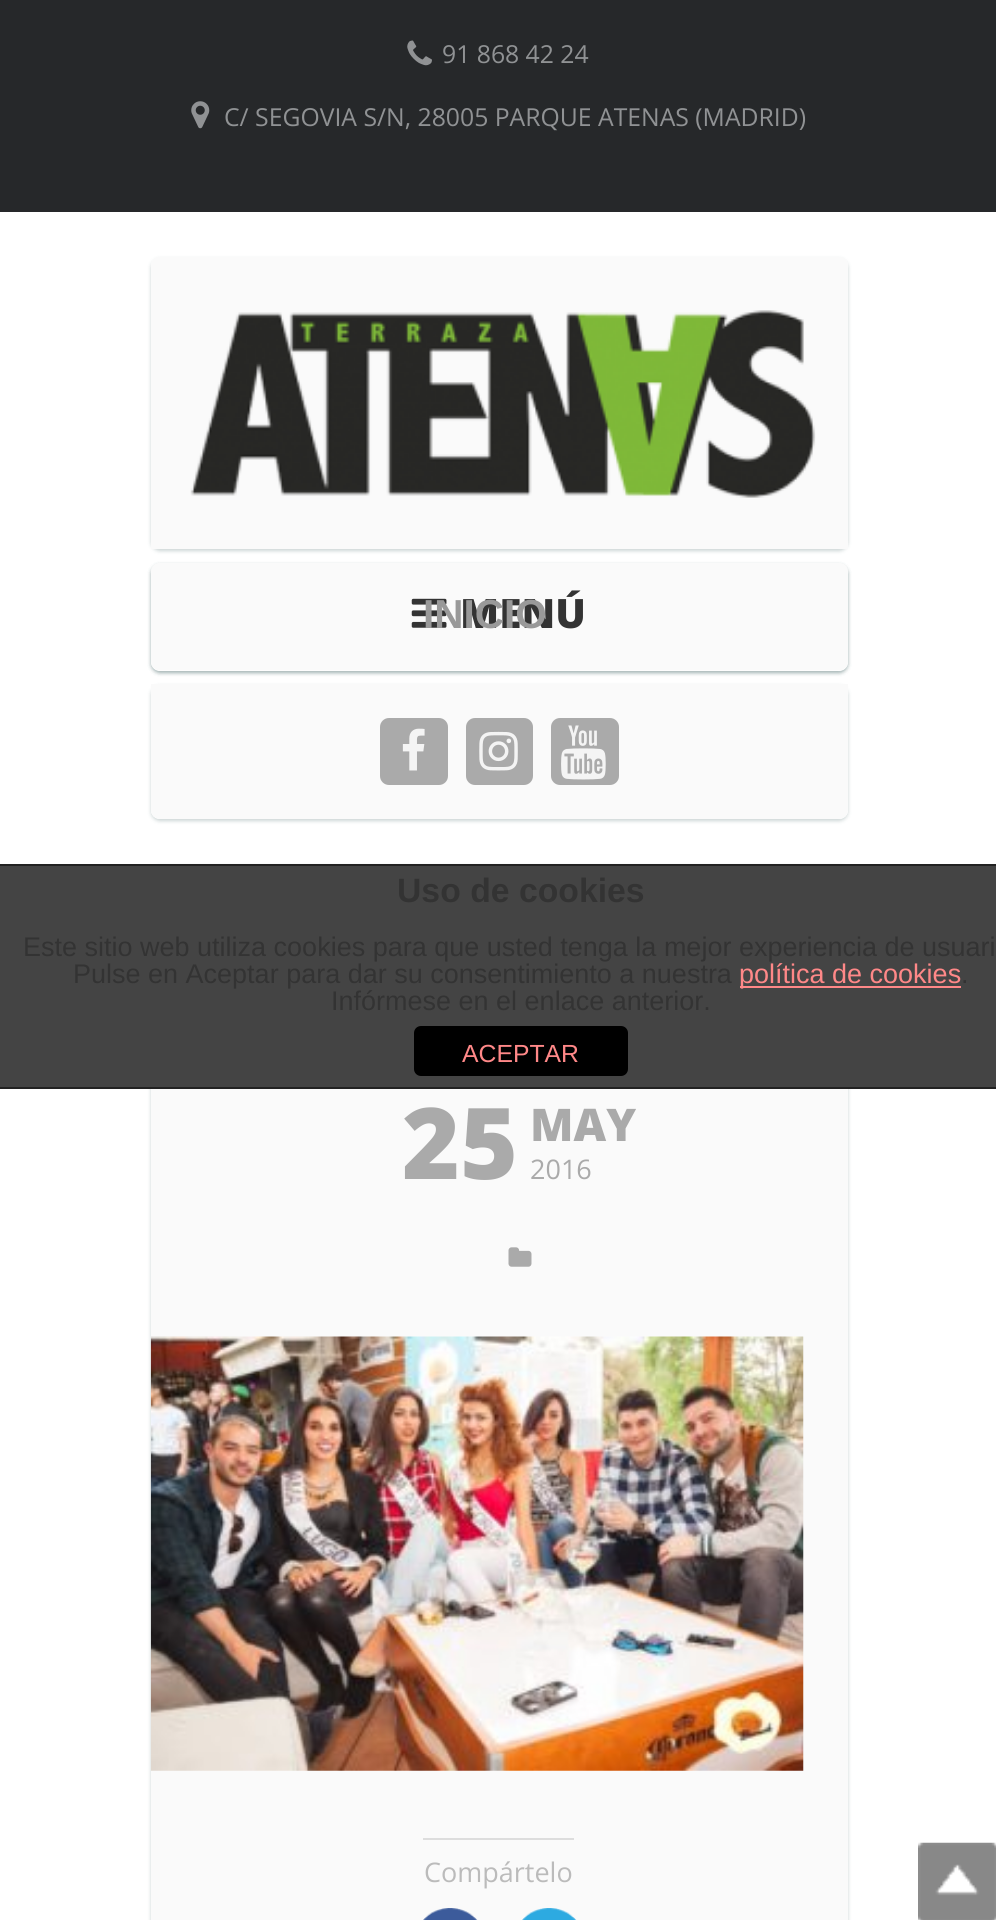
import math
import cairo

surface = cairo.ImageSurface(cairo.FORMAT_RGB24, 996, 1920)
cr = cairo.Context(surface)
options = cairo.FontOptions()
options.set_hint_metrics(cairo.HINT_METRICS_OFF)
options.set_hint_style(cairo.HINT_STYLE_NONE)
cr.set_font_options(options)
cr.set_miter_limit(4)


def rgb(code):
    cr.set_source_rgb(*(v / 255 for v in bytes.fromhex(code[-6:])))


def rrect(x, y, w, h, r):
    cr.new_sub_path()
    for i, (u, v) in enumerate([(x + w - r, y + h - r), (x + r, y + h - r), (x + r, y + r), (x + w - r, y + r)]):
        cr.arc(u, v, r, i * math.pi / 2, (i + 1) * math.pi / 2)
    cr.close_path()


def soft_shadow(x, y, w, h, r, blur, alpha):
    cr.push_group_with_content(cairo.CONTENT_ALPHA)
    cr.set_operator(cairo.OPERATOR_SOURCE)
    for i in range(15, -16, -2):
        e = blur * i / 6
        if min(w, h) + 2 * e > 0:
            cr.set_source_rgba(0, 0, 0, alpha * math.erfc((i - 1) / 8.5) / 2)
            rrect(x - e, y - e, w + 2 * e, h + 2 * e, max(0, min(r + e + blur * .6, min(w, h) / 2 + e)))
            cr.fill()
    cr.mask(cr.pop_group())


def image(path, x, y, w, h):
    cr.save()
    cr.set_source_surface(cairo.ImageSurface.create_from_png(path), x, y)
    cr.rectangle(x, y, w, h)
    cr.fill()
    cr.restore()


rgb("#ffffff")
cr.paint()
rgb("#26282a")
cr.rectangle(0, 0, 996, 212)
cr.fill()
image("img/1.png", 407, 40, 25, 26)
image("img/2.png", 191, 101, 19, 28)
cr.save()
cr.set_fill_rule(cairo.FILL_RULE_EVEN_ODD)
cr.new_path()
cr.move_to(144, 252)
cr.line_to(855, 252)
cr.line_to(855, 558)
cr.line_to(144, 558)
cr.close_path()
cr.move_to(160, 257)
cr.line_to(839, 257)
cr.curve_to(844, 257, 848, 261, 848, 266)
cr.line_to(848, 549)
cr.line_to(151, 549)
cr.line_to(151, 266)
cr.curve_to(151, 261, 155, 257, 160, 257)
cr.close_path()
cr.clip()
rgb("#1e4646")
soft_shadow(151, 259, 697, 292, 9, 2, 0.23)
cr.restore()
image("img/3.png", 151, 257, 697, 292)
image("img/4.png", 190, 310, 626, 188)
cr.save()
cr.set_fill_rule(cairo.FILL_RULE_EVEN_ODD)
cr.new_path()
cr.move_to(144, 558)
cr.line_to(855, 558)
cr.line_to(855, 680)
cr.line_to(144, 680)
cr.close_path()
cr.move_to(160, 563)
cr.line_to(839, 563)
cr.curve_to(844, 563, 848, 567, 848, 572)
cr.line_to(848, 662)
cr.curve_to(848, 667, 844, 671, 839, 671)
cr.line_to(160, 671)
cr.curve_to(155, 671, 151, 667, 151, 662)
cr.line_to(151, 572)
cr.curve_to(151, 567, 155, 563, 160, 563)
cr.close_path()
cr.clip()
rgb("#1e4646")
soft_shadow(151, 565, 697, 108, 9, 2, 0.23)
cr.restore()
image("img/5.png", 151, 563, 697, 108)
cr.save()
cr.set_fill_rule(cairo.FILL_RULE_EVEN_ODD)
cr.new_path()
cr.move_to(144, 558)
cr.line_to(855, 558)
cr.line_to(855, 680)
cr.line_to(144, 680)
cr.close_path()
cr.move_to(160, 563)
cr.line_to(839, 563)
cr.curve_to(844, 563, 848, 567, 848, 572)
cr.line_to(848, 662)
cr.curve_to(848, 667, 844, 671, 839, 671)
cr.line_to(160, 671)
cr.curve_to(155, 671, 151, 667, 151, 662)
cr.line_to(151, 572)
cr.curve_to(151, 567, 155, 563, 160, 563)
cr.close_path()
cr.clip()
rgb("#1e4646")
soft_shadow(151, 565, 697, 108, 9, 2, 0.23)
cr.restore()
image("img/6.png", 411, 598, 36, 30)
cr.save()
cr.set_fill_rule(cairo.FILL_RULE_EVEN_ODD)
cr.new_path()
cr.move_to(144, 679)
cr.line_to(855, 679)
cr.line_to(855, 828)
cr.line_to(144, 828)
cr.close_path()
cr.move_to(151, 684)
cr.line_to(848, 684)
cr.line_to(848, 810)
cr.curve_to(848, 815, 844, 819, 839, 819)
cr.line_to(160, 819)
cr.curve_to(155, 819, 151, 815, 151, 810)
cr.close_path()
cr.clip()
rgb("#1e4646")
soft_shadow(151, 686, 697, 135, 9, 2, 0.23)
cr.restore()
image("img/7.png", 151, 684, 697, 135)
rgb("#aaaaaa")
rrect(380, 718, 68, 67, 9)
cr.fill()
image("img/8.png", 402, 728, 23, 43)
rrect(466, 718, 67, 67, 9)
cr.fill()
image("img/9.png", 479, 731, 39, 40)
rrect(551, 718, 68, 67, 9)
cr.fill()
image("img/10.png", 561, 725, 45, 55)
cr.save()
cr.set_fill_rule(cairo.FILL_RULE_EVEN_ODD)
cr.new_path()
cr.move_to(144, 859)
cr.line_to(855, 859)
cr.line_to(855, 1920)
cr.line_to(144, 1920)
cr.close_path()
cr.move_to(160, 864)
cr.line_to(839, 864)
cr.curve_to(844, 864, 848, 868, 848, 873)
cr.line_to(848, 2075)
cr.curve_to(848, 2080, 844, 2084, 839, 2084)
cr.line_to(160, 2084)
cr.curve_to(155, 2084, 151, 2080, 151, 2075)
cr.line_to(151, 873)
cr.curve_to(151, 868, 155, 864, 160, 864)
cr.close_path()
cr.clip()
rgb("#1e4646")
soft_shadow(151, 866, 697, 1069, 9, 2, 0.23)
cr.restore()
image("img/11.png", 151, 1089, 697, 831)
image("img/12.png", 508, 1247, 24, 20)
image("img/13.png", 150, 1336, 654, 435)
rgb("#dddddd")
cr.rectangle(423, 1838, 151, 2)
cr.fill()
image("img/14.png", 423, 1908, 55, 12)
image("img/15.png", 522, 1908, 55, 12)
for x, y, w, h, color in [
    (0, 866, 996, 221, "#444444"),
    (0, 864, 996, 2, "#222222"),
    (0, 1087, 996, 2, "#222222"),
    (740, 986, 221, 2, "#ff8888"),
]:
    rgb(color)
    cr.rectangle(x, y, w, h)
    cr.fill()
rgb("#000000")
rrect(414, 1026, 214, 50, 7)
cr.fill()
image("img/16.png", 918, 1842, 78, 78)
cr.select_font_face("Open Sans")
cr.set_font_size(24.75)
rgb("#909294")
cr.move_to(442, 63)
cr.show_text("91 868 42 24")
cr.move_to(224, 126)
cr.show_text("C/ SEGOVIA S/N, 28005 PARQUE ATENAS (MADRID)")
cr.select_font_face("Open Sans ExtraBold")
cr.set_font_size(40.5)
rgb("#333333")
cr.move_to(460, 628)
cr.show_text("MENÚ")
cr.select_font_face("Liberation Sans", cairo.FONT_SLANT_NORMAL, cairo.FONT_WEIGHT_BOLD)
rgb("#999999")
cr.move_to(423, 628)
cr.show_text("INICIO")
cr.select_font_face("Open Sans ExtraBold")
cr.set_font_size(99)
rgb("#aaaaaa")
cr.move_to(402, 1179)
cr.show_text("25")
cr.set_font_size(45)
cr.move_to(530, 1141)
cr.show_text("MAY")
cr.select_font_face("Open Sans")
cr.set_font_size(27)
cr.move_to(530, 1179)
cr.show_text("2016")
rgb("#bbbbbb")
cr.move_to(424, 1882)
cr.show_text("Compártelo")
cr.select_font_face("Liberation Sans", cairo.FONT_SLANT_NORMAL, cairo.FONT_WEIGHT_BOLD)
cr.set_font_size(33.75)
rgb("#333333")
cr.move_to(397, 902)
cr.show_text("Uso de cookies")
cr.select_font_face("Liberation Sans")
cr.set_font_size(27)
cr.move_to(23, 956)
cr.show_text("Este sitio web utiliza cookies para que usted tenga la mejor experiencia de usuari")
cr.move_to(73, 983)
cr.show_text("Pulse en Aceptar para dar su consentimiento a nuestra")
rgb("#ff8888")
cr.move_to(739, 983)
cr.show_text("política de cookies")
rgb("#333333")
cr.move_to(961, 983)
cr.show_text(".")
cr.move_to(331, 1010)
cr.show_text("Infórmese en el enlace anterior.")
cr.set_font_size(24.75)
rgb("#ff8888")
cr.move_to(462, 1062)
cr.show_text("ACEPTAR")
surface.write_to_png("page.png")
